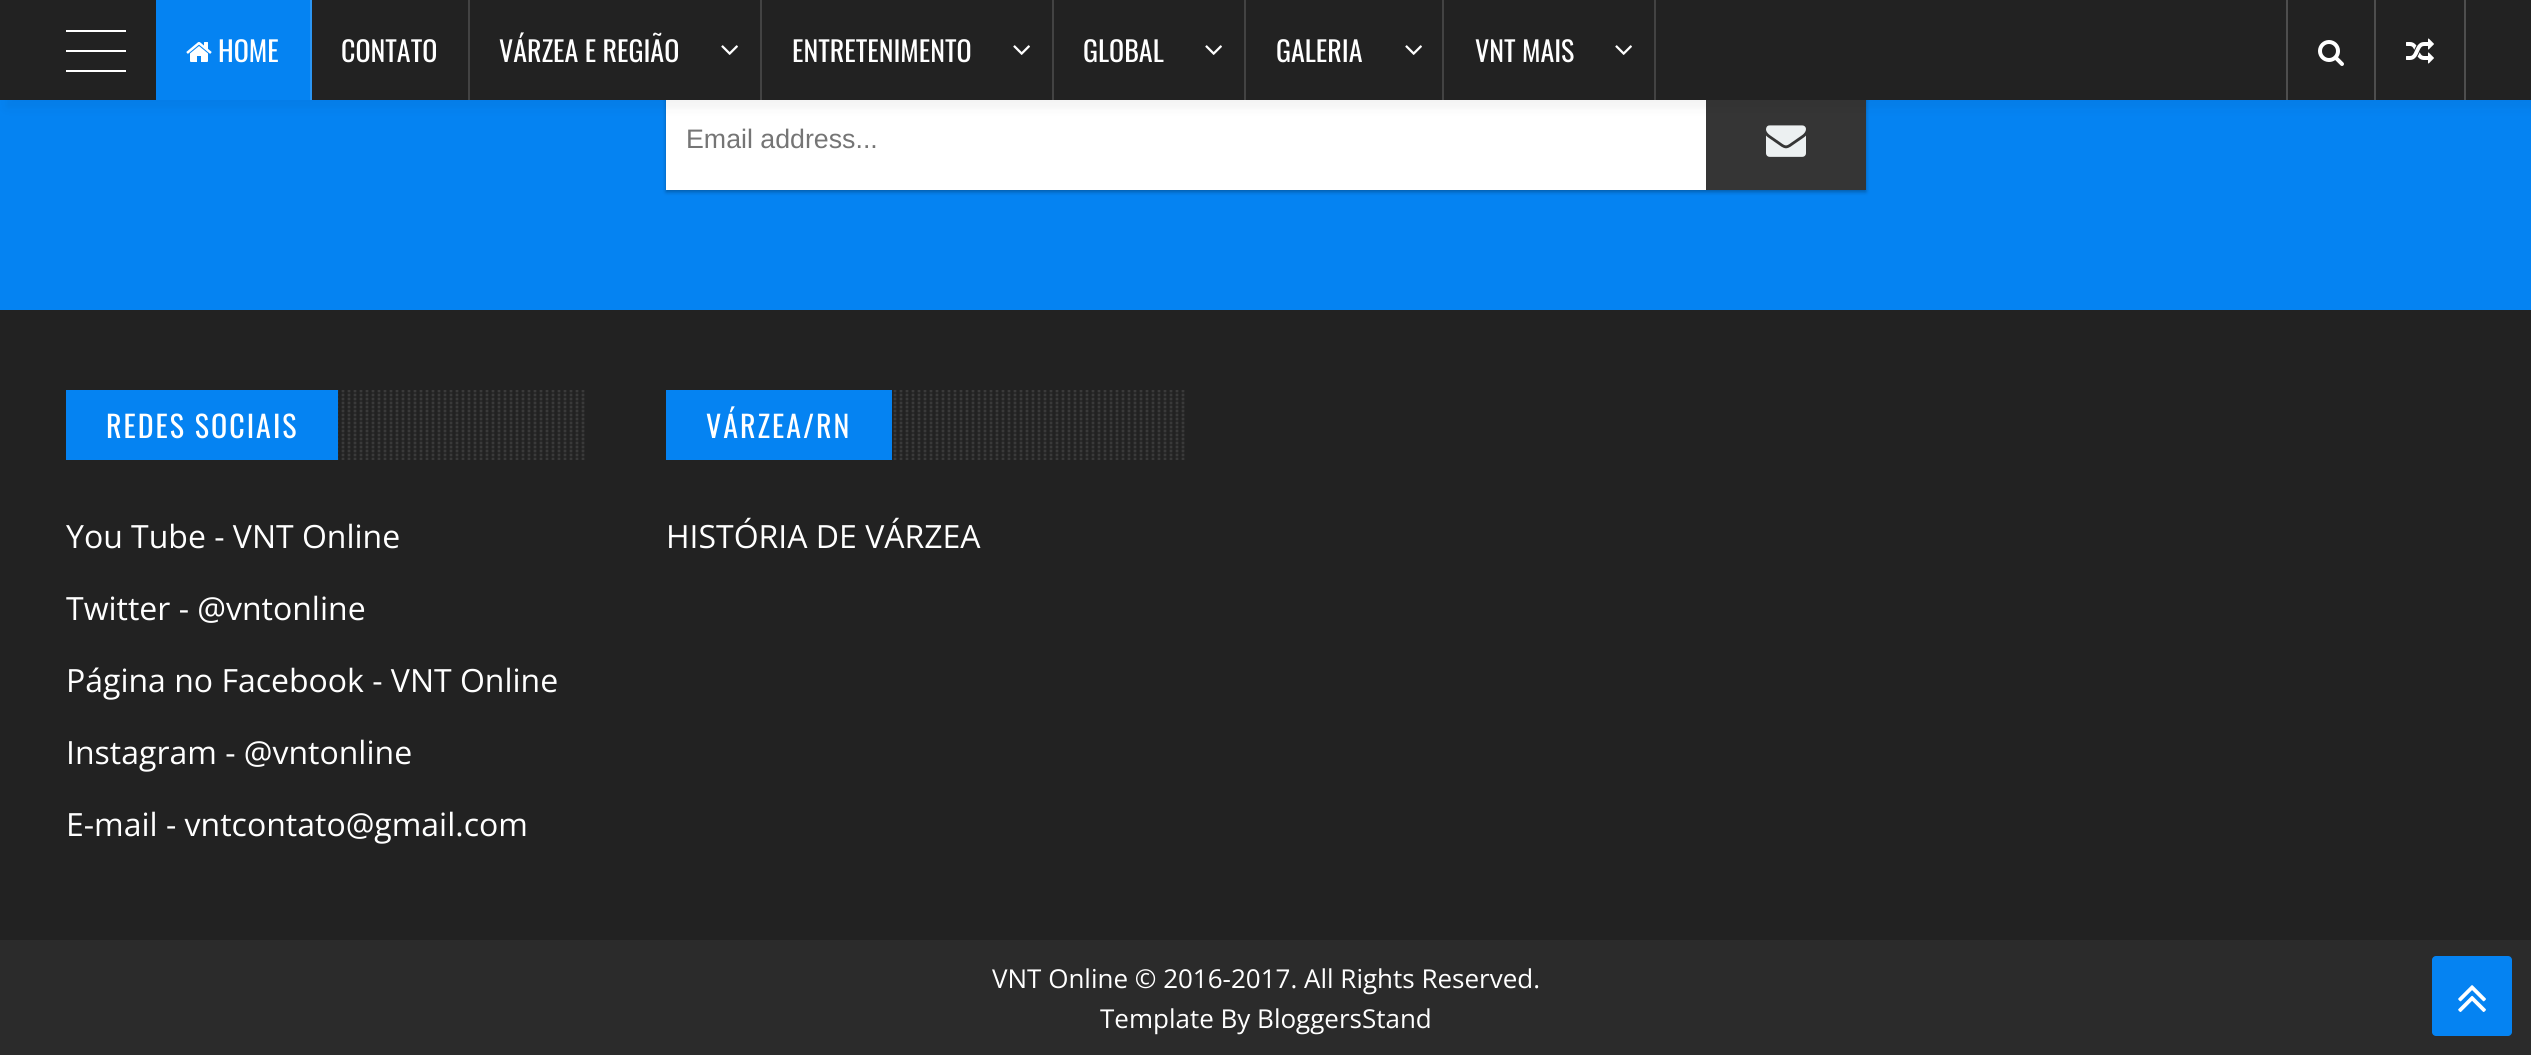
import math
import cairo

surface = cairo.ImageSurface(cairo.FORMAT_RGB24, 2531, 1055)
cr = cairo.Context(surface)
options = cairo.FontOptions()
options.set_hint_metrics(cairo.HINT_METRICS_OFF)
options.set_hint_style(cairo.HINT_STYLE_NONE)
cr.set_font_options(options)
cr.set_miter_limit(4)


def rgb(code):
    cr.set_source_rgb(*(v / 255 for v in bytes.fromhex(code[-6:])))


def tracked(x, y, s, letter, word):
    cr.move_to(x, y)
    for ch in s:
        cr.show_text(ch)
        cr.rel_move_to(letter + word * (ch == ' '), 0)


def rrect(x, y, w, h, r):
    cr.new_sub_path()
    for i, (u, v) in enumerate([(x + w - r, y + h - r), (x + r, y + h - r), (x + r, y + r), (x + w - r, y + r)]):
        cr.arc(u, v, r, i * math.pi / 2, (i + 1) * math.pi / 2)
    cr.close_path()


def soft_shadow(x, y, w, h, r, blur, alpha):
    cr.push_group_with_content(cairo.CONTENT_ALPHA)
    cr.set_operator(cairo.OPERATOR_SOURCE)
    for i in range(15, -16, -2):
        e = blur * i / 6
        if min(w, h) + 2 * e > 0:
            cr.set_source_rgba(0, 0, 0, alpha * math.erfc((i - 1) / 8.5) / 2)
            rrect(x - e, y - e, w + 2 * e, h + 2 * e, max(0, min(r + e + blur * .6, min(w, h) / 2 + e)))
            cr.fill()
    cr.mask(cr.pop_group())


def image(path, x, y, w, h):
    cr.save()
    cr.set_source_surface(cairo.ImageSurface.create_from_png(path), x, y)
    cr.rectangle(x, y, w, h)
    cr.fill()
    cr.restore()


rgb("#0583f2")
cr.paint()
rgb("#000000")
soft_shadow(666, 92, 1200, 100, 0, 2, 0.3)
rgb("#ffffff")
cr.rectangle(666, 100, 1040, 90)
cr.fill()
rgb("#353535")
cr.rectangle(1706, 100, 160, 90)
cr.fill()
rgb("#000000")
soft_shadow(6, 8, 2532, 100, 0, 5, 0.05)
for x, y, w, h, color in [
    (0, 0, 2531, 100, "#222222"),
    (66, 50, 60, 2, "#ffffff"),
    (66, 30, 60, 2, "#ffffff"),
    (66, 70, 60, 2, "#ffffff"),
    (156, 0, 154, 100, "#0583f2"),
    (310, 0, 2, 100, "#2b96f4"),
]:
    rgb(color)
    cr.rectangle(x, y, w, h)
    cr.fill()
image("img/1.png", 186, 42, 26, 20)
rgb("#434343")
cr.rectangle(468, 0, 2, 100)
cr.fill()
cr.rectangle(760, 0, 2, 100)
cr.fill()
image("img/2.png", 721, 45, 17, 10)
cr.rectangle(1052, 0, 2, 100)
cr.fill()
image("img/2.png", 1013, 45, 17, 10)
cr.rectangle(1244, 0, 2, 100)
cr.fill()
image("img/2.png", 1205, 45, 17, 10)
cr.rectangle(1442, 0, 2, 100)
cr.fill()
image("img/2.png", 1405, 45, 17, 10)
cr.rectangle(1654, 0, 2, 100)
cr.fill()
image("img/2.png", 1615, 45, 17, 10)
rgb("#4e4e4e")
cr.rectangle(2286, 0, 2, 100)
cr.fill()
image("img/3.png", 2318, 40, 26, 26)
cr.rectangle(2464, 0, 2, 100)
cr.fill()
cr.rectangle(2374, 0, 2, 100)
cr.fill()
image("img/4.png", 2406, 38, 28, 26)
image("img/5.png", 1766, 125, 40, 32)
rgb("#222222")
cr.rectangle(0, 310, 2531, 630)
cr.fill()
image("img/6.png", 338, 390, 247, 70)
rgb("#0583f2")
cr.rectangle(66, 390, 272, 70)
cr.fill()
image("img/7.png", 893, 390, 292, 70)
cr.rectangle(666, 390, 226, 70)
cr.fill()
rgb("#2b2b2b")
cr.rectangle(0, 940, 2531, 115)
cr.fill()
rgb("#0583f2")
rrect(2432, 956, 80, 80, 4)
cr.fill()
image("img/8.png", 2458, 985, 28, 27)
cr.select_font_face("Oswald")
cr.set_font_size(28)
rgb("#ffffff")
for x, y, s in [
    (218, 62, "HOME"),
    (341, 62, "CONTATO"),
    (499, 62, "VÁRZEA E REGIÃO"),
    (792, 62, "ENTRETENIMENTO"),
    (1083, 62, "GLOBAL"),
    (1276, 62, "GALERIA"),
    (1475, 62, "VNT MAIS"),
]:
    cr.move_to(x, y)
    cr.show_text(s)
cr.select_font_face("Liberation Sans")
cr.set_font_size(26.75)
rgb("#757575")
cr.move_to(686, 148)
cr.show_text("Email address...")
cr.select_font_face("Oswald")
cr.set_font_size(30)
rgb("#ffffff")
tracked(106, 438, "REDES SOCIAIS", 2, 0)
cr.select_font_face("Open Sans")
cr.set_font_size(32)
for x, y, s in [
    (66, 548, "You Tube - VNT Online"),
    (66, 620, "Twitter - @vntonline"),
    (66, 692, "Página no Facebook - VNT Online"),
    (66, 764, "Instagram - @vntonline"),
    (66, 836, "E-mail - vntcontato@gmail.com"),
]:
    cr.move_to(x, y)
    cr.show_text(s)
cr.select_font_face("Oswald")
cr.set_font_size(30)
tracked(706, 438, "VÁRZEA/RN", 2, 0)
cr.select_font_face("Open Sans")
cr.set_font_size(32)
cr.move_to(666, 548)
cr.show_text("HISTÓRIA DE VÁRZEA")
cr.set_font_size(26)
cr.move_to(992, 988)
cr.show_text("VNT Online © 2016-2017. All Rights Reserved.")
cr.move_to(1100, 1028)
cr.show_text("Template By BloggersStand")
surface.write_to_png("page.png")
